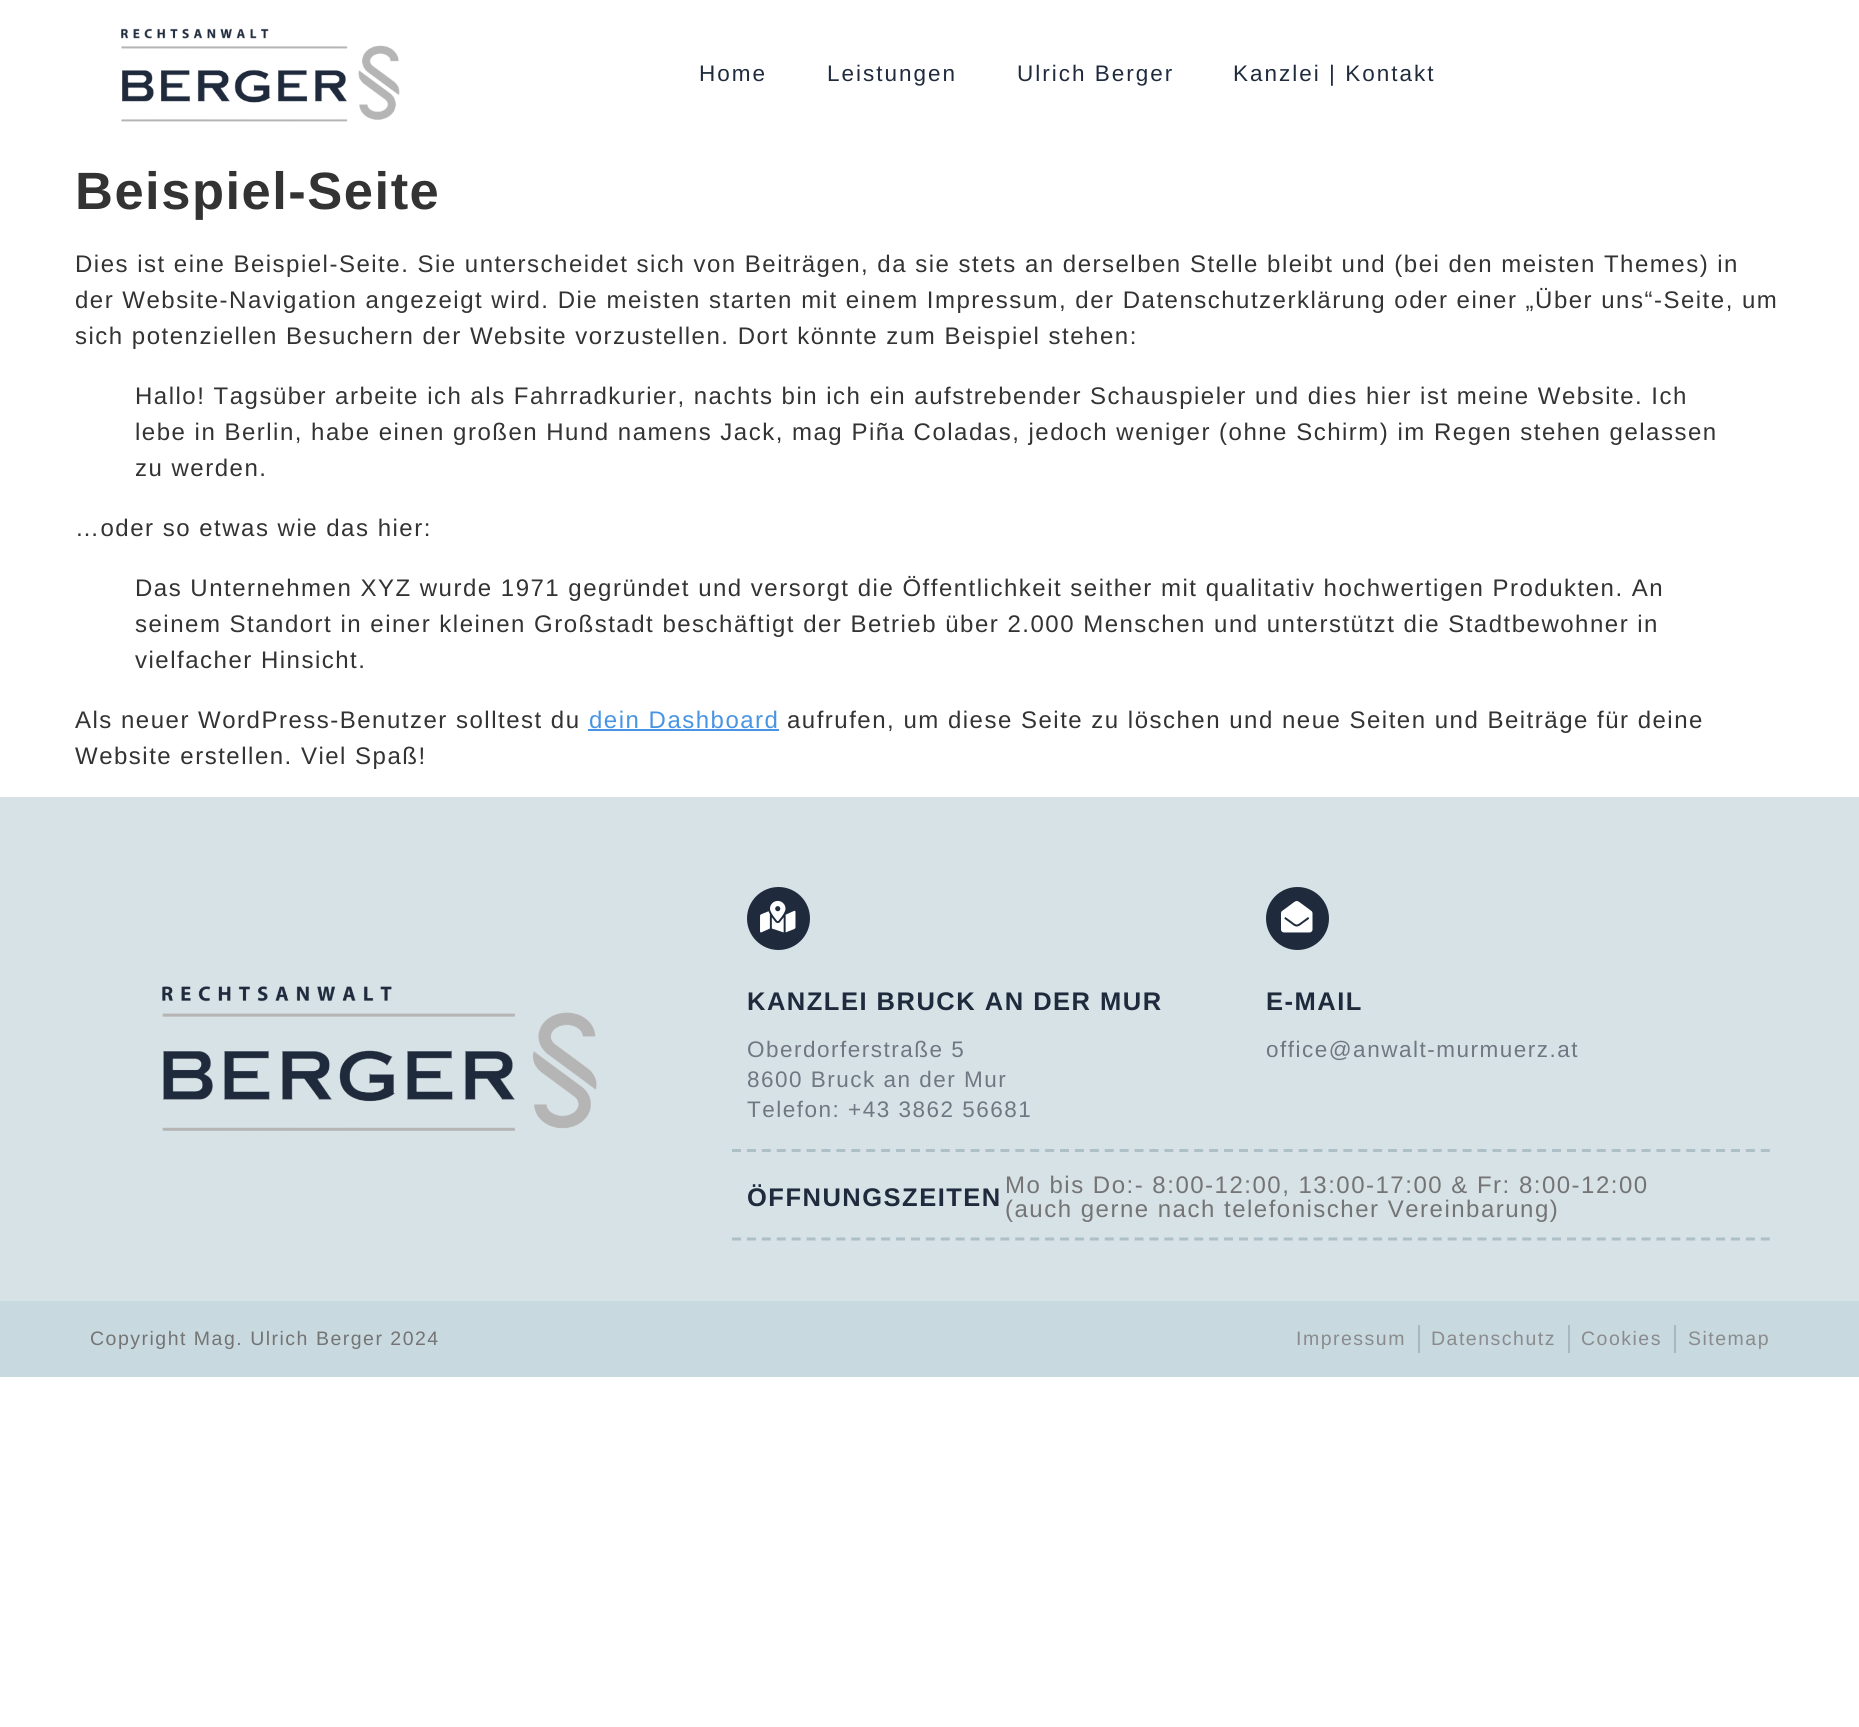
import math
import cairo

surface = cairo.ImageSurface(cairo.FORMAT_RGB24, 1859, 1727)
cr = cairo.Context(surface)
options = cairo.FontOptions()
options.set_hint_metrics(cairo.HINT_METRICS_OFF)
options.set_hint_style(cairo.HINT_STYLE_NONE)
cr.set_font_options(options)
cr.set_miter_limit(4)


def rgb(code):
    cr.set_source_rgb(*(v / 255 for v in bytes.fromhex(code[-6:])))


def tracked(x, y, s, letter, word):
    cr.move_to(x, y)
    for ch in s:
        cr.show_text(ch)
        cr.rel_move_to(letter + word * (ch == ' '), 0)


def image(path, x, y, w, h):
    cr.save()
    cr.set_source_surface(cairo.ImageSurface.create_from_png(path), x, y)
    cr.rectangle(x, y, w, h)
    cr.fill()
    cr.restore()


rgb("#ffffff")
cr.paint()
image("img/1.png", 121, 28, 279, 94)
rgb("#4894e4")
cr.rectangle(588, 729, 191, 2)
cr.fill()
rgb("#d7e2e7")
cr.rectangle(0, 797, 1859, 504)
cr.fill()
image("img/2.png", 162, 986, 435, 145)
rgb("#1f2b3d")
cr.arc(778.5, 918.5, 31.5, 0, 2 * math.pi)
cr.fill()
image("img/3.png", 760, 900, 36, 33)
cr.arc(1297.5, 918.5, 31.5, 0, 2 * math.pi)
cr.fill()
image("img/4.png", 1281, 901, 32, 32)
cr.new_path()
cr.move_to(732, 1150.5)
cr.line_to(1770, 1150.5)
rgb("#adc0c8")
cr.set_line_width(3)
cr.set_dash([9, 5.91])
cr.stroke()
cr.new_path()
cr.move_to(732, 1239)
cr.line_to(1770, 1239)
cr.stroke()
for x, y, w, h, color in [
    (0, 1301, 1859, 76, "#c8d9e0"),
    (1418, 1325, 2, 28, "#a6b9c2"),
    (1568, 1325, 2, 28, "#a6b9c2"),
    (1674, 1325, 2, 28, "#a6b9c2"),
]:
    rgb(color)
    cr.rectangle(x, y, w, h)
    cr.fill()
cr.select_font_face("Liberation Sans")
cr.set_font_size(22.5)
rgb("#1f2b3d")
for x, y, s in [
    (699, 81, "Home"),
    (827, 81, "Leistungen"),
    (1017, 81, "Ulrich Berger"),
    (1233, 81, "Kanzlei | Kontakt"),
]:
    tracked(x, y, s, 2, 0)
cr.select_font_face("Liberation Sans", cairo.FONT_SLANT_NORMAL, cairo.FONT_WEIGHT_BOLD)
cr.set_font_size(52.5)
rgb("#333333")
tracked(75, 209, "Beispiel-Seite", 1.5, 0)
cr.select_font_face("Liberation Sans")
cr.set_font_size(24)
for x, y, s in [
    (75, 272, "Dies ist eine Beispiel-Seite. Sie unterscheidet sich von Beiträgen, da sie stets an derselben Stelle bleibt und (bei den meisten Themes) in"),
    (75, 308, "der Website-Navigation angezeigt wird. Die meisten starten mit einem Impressum, der Datenschutzerklärung oder einer „Über uns“-Seite, um"),
    (75, 344, "sich potenziellen Besuchern der Website vorzustellen. Dort könnte zum Beispiel stehen:"),
    (135, 404, "Hallo! Tagsüber arbeite ich als Fahrradkurier, nachts bin ich ein aufstrebender Schauspieler und dies hier ist meine Website. Ich"),
    (135, 440, "lebe in Berlin, habe einen großen Hund namens Jack, mag Piña Coladas, jedoch weniger (ohne Schirm) im Regen stehen gelassen"),
    (135, 476, "zu werden."),
    (75, 536, "…oder so etwas wie das hier:"),
    (135, 596, "Das Unternehmen XYZ wurde 1971 gegründet und versorgt die Öffentlichkeit seither mit qualitativ hochwertigen Produkten. An"),
    (135, 632, "seinem Standort in einer kleinen Großstadt beschäftigt der Betrieb über 2.000 Menschen und unterstützt die Stadtbewohner in"),
    (135, 668, "vielfacher Hinsicht."),
    (75, 728, "Als neuer WordPress-Benutzer solltest du"),
]:
    tracked(x, y, s, 1.5, 0)
rgb("#4894e4")
tracked(589, 728, "dein Dashboard", 1.5, 0)
rgb("#333333")
tracked(787, 728, "aufrufen, um diese Seite zu löschen und neue Seiten und Beiträge für deine", 1.5, 0)
tracked(75, 764, "Website erstellen. Viel Spaß!", 1.5, 0)
cr.select_font_face("Liberation Sans", cairo.FONT_SLANT_NORMAL, cairo.FONT_WEIGHT_BOLD)
cr.set_font_size(25.5)
rgb("#1f2b3d")
tracked(747, 1010, "KANZLEI BRUCK AN DER MUR", 1.5, 0)
cr.select_font_face("Liberation Sans")
cr.set_font_size(22.5)
rgb("#707782")
for x, y, s in [
    (747, 1057, "Oberdorferstraße 5"),
    (747, 1087, "8600 Bruck an der Mur"),
    (747, 1117, "Telefon: +43 3862 56681"),
]:
    tracked(x, y, s, 1.5, 0)
cr.select_font_face("Liberation Sans", cairo.FONT_SLANT_NORMAL, cairo.FONT_WEIGHT_BOLD)
cr.set_font_size(25.5)
rgb("#1f2b3d")
tracked(1266, 1010, "E-MAIL", 1.5, 0)
cr.select_font_face("Liberation Sans")
cr.set_font_size(22.5)
rgb("#707782")
tracked(1266, 1057, "office@anwalt-murmuerz.at", 1.5, 0)
cr.select_font_face("Liberation Sans", cairo.FONT_SLANT_NORMAL, cairo.FONT_WEIGHT_BOLD)
cr.set_font_size(25.5)
rgb("#1f2b3d")
tracked(747, 1206, "ÖFFNUNGSZEITEN", 1.5, 0)
cr.select_font_face("Liberation Sans")
cr.set_font_size(24)
rgb("#747474")
tracked(1005, 1193, "Mo bis Do:- 8:00-12:00, 13:00-17:00 & Fr: 8:00-12:00", 1.5, 0)
tracked(1005, 1217, "(auch gerne nach telefonischer Vereinbarung)", 1.5, 0)
cr.set_font_size(19.5)
tracked(90, 1345, "Copyright Mag. Ulrich Berger 2024", 1.5, 0)
rgb("#8a8b8c")
for x, y, s in [
    (1296, 1345, "Impressum"),
    (1431, 1345, "Datenschutz"),
    (1581, 1345, "Cookies"),
    (1688, 1345, "Sitemap"),
]:
    tracked(x, y, s, 1.5, 0)
surface.write_to_png("page.png")
